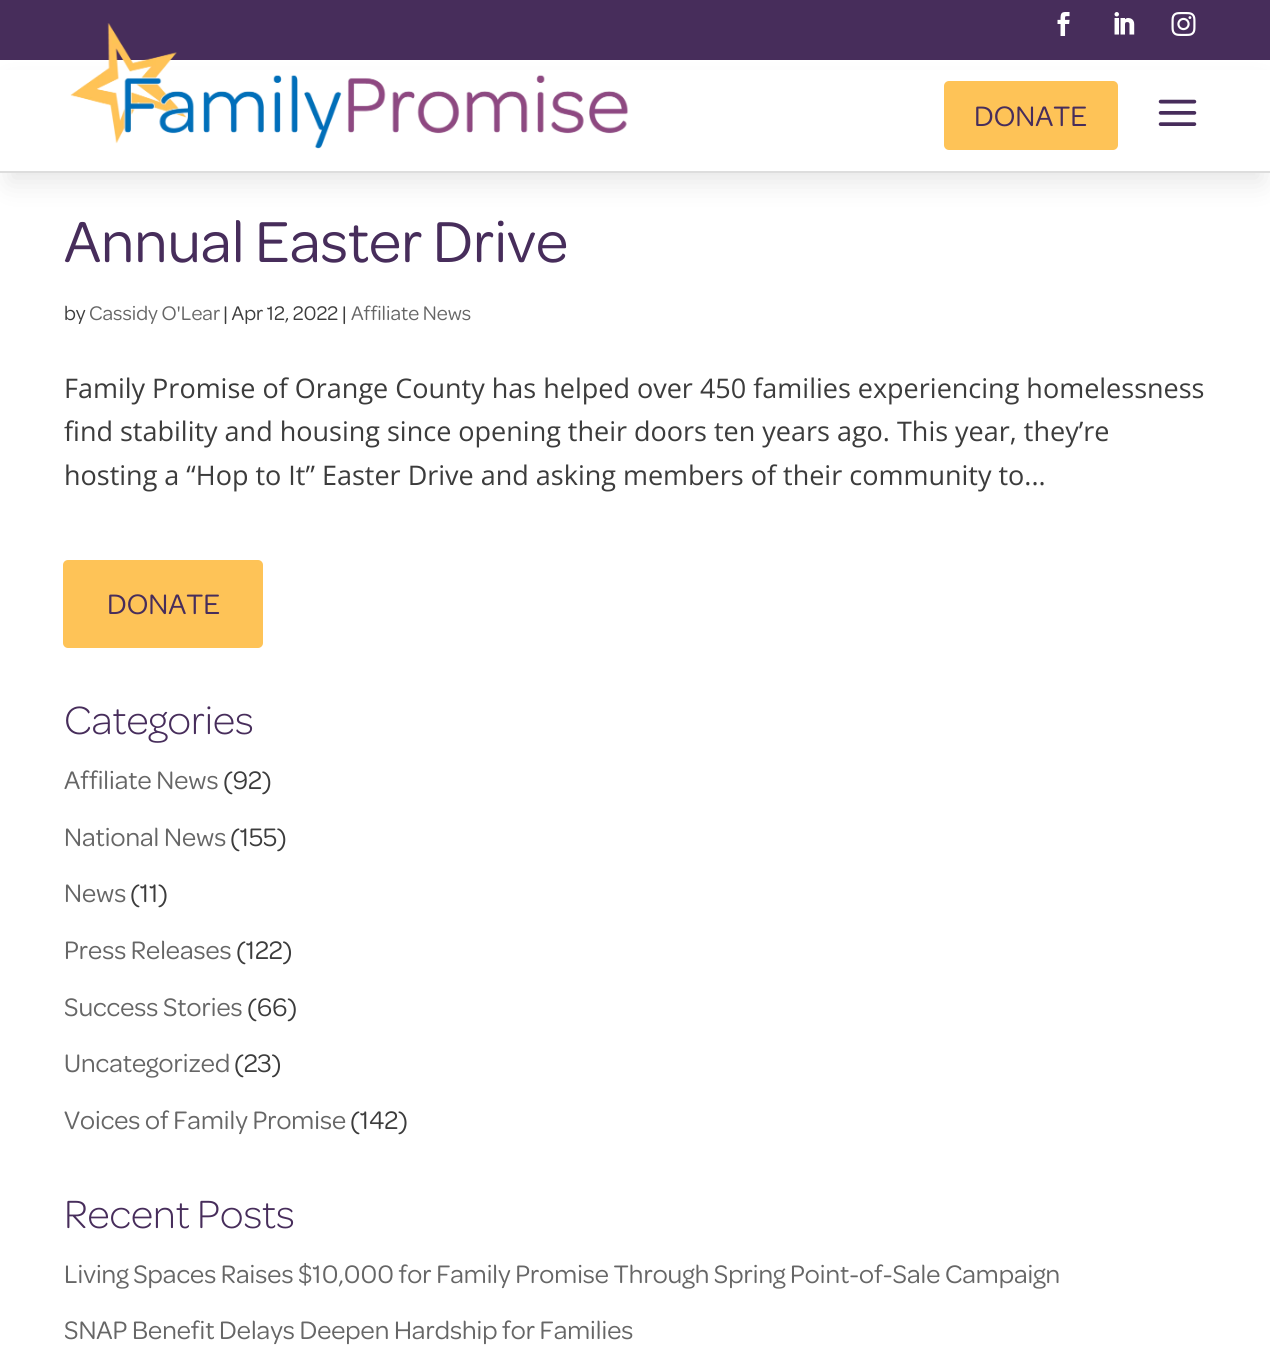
import math
import cairo

surface = cairo.ImageSurface(cairo.FORMAT_RGB24, 1270, 1350)
cr = cairo.Context(surface)
options = cairo.FontOptions()
options.set_hint_metrics(cairo.HINT_METRICS_OFF)
options.set_hint_style(cairo.HINT_STYLE_NONE)
cr.set_font_options(options)
cr.set_miter_limit(4)


def rgb(code):
    cr.set_source_rgb(*(v / 255 for v in bytes.fromhex(code[-6:])))


def rrect(x, y, w, h, r):
    cr.new_sub_path()
    for i, (u, v) in enumerate([(x + w - r, y + h - r), (x + r, y + h - r), (x + r, y + r), (x + w - r, y + r)]):
        cr.arc(u, v, r, i * math.pi / 2, (i + 1) * math.pi / 2)
    cr.close_path()


def soft_shadow(x, y, w, h, r, blur, alpha):
    cr.push_group_with_content(cairo.CONTENT_ALPHA)
    cr.set_operator(cairo.OPERATOR_SOURCE)
    for i in range(15, -16, -2):
        e = blur * i / 6
        if min(w, h) + 2 * e > 0:
            cr.set_source_rgba(0, 0, 0, alpha * math.erfc((i - 1) / 8.5) / 2)
            rrect(x - e, y - e, w + 2 * e, h + 2 * e, max(0, min(r + e + blur * .6, min(w, h) / 2 + e)))
            cr.fill()
    cr.mask(cr.pop_group())


def image(path, x, y, w, h):
    cr.save()
    cr.set_source_surface(cairo.ImageSurface.create_from_png(path), x, y)
    cr.rectangle(x, y, w, h)
    cr.fill()
    cr.restore()


rgb("#ffffff")
cr.paint()
rgb("#472d5b")
cr.rectangle(0, 0, 1270, 60)
cr.fill()
image("img/1.png", 1057, 12, 13, 24)
image("img/2.png", 1114, 12, 21, 23)
image("img/3.png", 1171, 12, 25, 24)
rgb("#000000")
soft_shadow(9, 87, 1253, 95, 0, 13.5, 0.1)
rgb("#ffffff")
cr.rectangle(0, 70, 1270, 101)
cr.fill()
rgb("#dddddd")
cr.rectangle(0, 171, 1270, 2)
cr.fill()
image("img/4.png", 70, 23, 559, 126)
rgb("#fec357")
rrect(944, 81, 174, 69, 5)
cr.fill()
image("img/5.png", 1158, 99, 39, 27)
rrect(63, 560, 200, 88, 5)
cr.fill()
cr.select_font_face("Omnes")
cr.set_font_size(30)
rgb("#472d5b")
cr.move_to(974, 126)
cr.show_text("DONATE")
cr.set_font_size(61.5)
cr.move_to(64, 262)
cr.show_text("Annual Easter Drive")
cr.set_font_size(21)
rgb("#3c3c3c")
cr.move_to(64, 320)
cr.show_text("by")
rgb("#666666")
cr.move_to(89, 320)
cr.show_text("Cassidy O'Lear")
rgb("#3c3c3c")
cr.move_to(223, 320)
cr.show_text("| Apr 12, 2022 |")
rgb("#666666")
cr.move_to(351, 320)
cr.show_text("Affiliate News")
cr.select_font_face("Open Sans")
cr.set_font_size(27)
rgb("#3c3c3c")
for x, y, s in [
    (64, 398, "Family Promise of Orange County has helped over 450 families experiencing homelessness"),
    (64, 441, "find stability and housing since opening their doors ten years ago. This year, they’re"),
    (64, 485, "hosting a “Hop to It” Easter Drive and asking members of their community to..."),
]:
    cr.move_to(x, y)
    cr.show_text(s)
cr.select_font_face("Omnes")
cr.set_font_size(30)
rgb("#472d5b")
cr.move_to(107, 614)
cr.show_text("DONATE")
cr.select_font_face("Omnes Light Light")
cr.set_font_size(42)
cr.move_to(64, 734)
cr.show_text("Categories")
cr.select_font_face("Omnes")
cr.set_font_size(27)
rgb("#666666")
cr.move_to(64, 789)
cr.show_text("Affiliate News")
rgb("#3c3c3c")
cr.move_to(223, 789)
cr.show_text("(92)")
rgb("#666666")
cr.move_to(64, 846)
cr.show_text("National News")
rgb("#3c3c3c")
cr.move_to(230, 846)
cr.show_text("(155)")
rgb("#666666")
cr.move_to(64, 902)
cr.show_text("News")
rgb("#3c3c3c")
cr.move_to(130, 902)
cr.show_text("(11)")
rgb("#666666")
cr.move_to(64, 959)
cr.show_text("Press Releases")
rgb("#3c3c3c")
cr.move_to(236, 959)
cr.show_text("(122)")
rgb("#666666")
cr.move_to(64, 1016)
cr.show_text("Success Stories")
rgb("#3c3c3c")
cr.move_to(247, 1016)
cr.show_text("(66)")
rgb("#666666")
cr.move_to(64, 1072)
cr.show_text("Uncategorized")
rgb("#3c3c3c")
cr.move_to(234, 1072)
cr.show_text("(23)")
rgb("#666666")
cr.move_to(64, 1129)
cr.show_text("Voices of Family Promise")
rgb("#3c3c3c")
cr.move_to(350, 1129)
cr.show_text("(142)")
cr.select_font_face("Omnes Light Light")
cr.set_font_size(42)
rgb("#472d5b")
cr.move_to(64, 1228)
cr.show_text("Recent Posts")
cr.select_font_face("Omnes")
cr.set_font_size(27)
rgb("#666666")
cr.move_to(64, 1283)
cr.show_text("Living Spaces Raises $10,000 for Family Promise Through Spring Point-of-Sale Campaign")
cr.move_to(64, 1339)
cr.show_text("SNAP Benefit Delays Deepen Hardship for Families")
surface.write_to_png("page.png")
